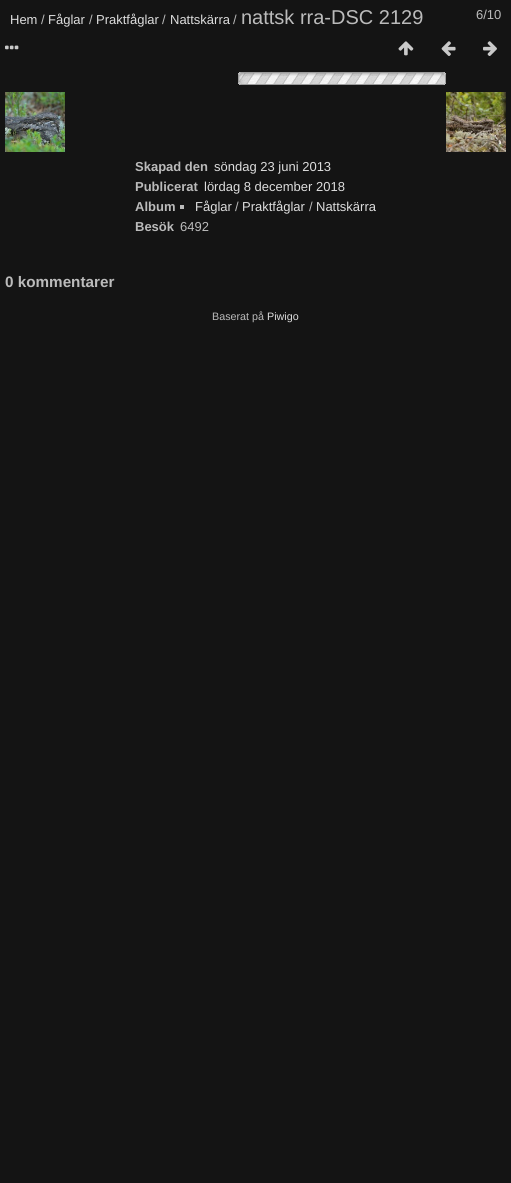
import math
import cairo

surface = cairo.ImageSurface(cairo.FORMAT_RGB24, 511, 1183)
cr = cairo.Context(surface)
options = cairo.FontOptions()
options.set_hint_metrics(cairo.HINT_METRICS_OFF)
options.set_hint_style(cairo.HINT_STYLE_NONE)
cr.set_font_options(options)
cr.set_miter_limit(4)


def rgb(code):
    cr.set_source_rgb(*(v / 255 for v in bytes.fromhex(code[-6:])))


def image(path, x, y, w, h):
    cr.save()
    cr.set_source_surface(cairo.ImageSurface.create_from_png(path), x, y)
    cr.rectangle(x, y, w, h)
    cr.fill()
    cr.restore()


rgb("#141414")
cr.paint()
image("img/1.png", 5, 45, 14, 5)
image("img/2.png", 398, 41, 16, 15)
image("img/3.png", 441, 41, 15, 15)
image("img/4.png", 483, 41, 14, 15)
image("img/5.png", 238, 72, 208, 13)
image("img/6.png", 5, 92, 60, 60)
image("img/7.png", 446, 92, 60, 60)
rgb("#bbbbbb")
cr.rectangle(180, 205, 4, 4)
cr.fill()
cr.select_font_face("Liberation Sans")
cr.set_font_size(13)
rgb("#dddddd")
cr.move_to(10, 24)
cr.show_text("Hem")
rgb("#bbbbbb")
cr.move_to(41, 24)
cr.show_text("/")
rgb("#dddddd")
cr.move_to(48, 24)
cr.show_text("Fåglar")
rgb("#bbbbbb")
cr.move_to(89, 24)
cr.show_text("/")
rgb("#dddddd")
cr.move_to(96, 24)
cr.show_text("Praktfåglar")
rgb("#bbbbbb")
cr.move_to(162, 24)
cr.show_text("/")
rgb("#dddddd")
cr.move_to(170, 24)
cr.show_text("Nattskärra")
rgb("#bbbbbb")
cr.move_to(233, 24)
cr.show_text("/")
cr.set_font_size(20)
cr.move_to(241, 24)
cr.show_text("nattsk rra-DSC 2129")
cr.set_font_size(13)
cr.move_to(476, 19)
cr.show_text("6/10")
cr.select_font_face("Liberation Sans", cairo.FONT_SLANT_NORMAL, cairo.FONT_WEIGHT_BOLD)
cr.move_to(135, 171)
cr.show_text("Skapad den")
cr.select_font_face("Liberation Sans")
rgb("#dddddd")
cr.move_to(214, 171)
cr.show_text("söndag 23 juni 2013")
cr.select_font_face("Liberation Sans", cairo.FONT_SLANT_NORMAL, cairo.FONT_WEIGHT_BOLD)
rgb("#bbbbbb")
cr.move_to(135, 191)
cr.show_text("Publicerat")
cr.select_font_face("Liberation Sans")
rgb("#dddddd")
cr.move_to(204, 191)
cr.show_text("lördag 8 december 2018")
cr.select_font_face("Liberation Sans", cairo.FONT_SLANT_NORMAL, cairo.FONT_WEIGHT_BOLD)
rgb("#bbbbbb")
cr.move_to(135, 211)
cr.show_text("Album")
cr.select_font_face("Liberation Sans")
rgb("#dddddd")
cr.move_to(195, 211)
cr.show_text("Fåglar")
rgb("#bbbbbb")
cr.move_to(235, 211)
cr.show_text("/")
rgb("#dddddd")
cr.move_to(242, 211)
cr.show_text("Praktfåglar")
rgb("#bbbbbb")
cr.move_to(309, 211)
cr.show_text("/")
rgb("#dddddd")
cr.move_to(316, 211)
cr.show_text("Nattskärra")
cr.select_font_face("Liberation Sans", cairo.FONT_SLANT_NORMAL, cairo.FONT_WEIGHT_BOLD)
rgb("#bbbbbb")
cr.move_to(135, 231)
cr.show_text("Besök")
cr.select_font_face("Liberation Sans")
cr.move_to(180, 231)
cr.show_text("6492")
cr.select_font_face("Liberation Sans", cairo.FONT_SLANT_NORMAL, cairo.FONT_WEIGHT_BOLD)
cr.set_font_size(15.25)
cr.move_to(5, 287)
cr.show_text("0 kommentarer")
cr.select_font_face("Liberation Sans")
cr.set_font_size(10.75)
cr.move_to(212, 320)
cr.show_text("Baserat på")
rgb("#dddddd")
cr.move_to(267, 320)
cr.show_text("Piwigo")
surface.write_to_png("page.png")
